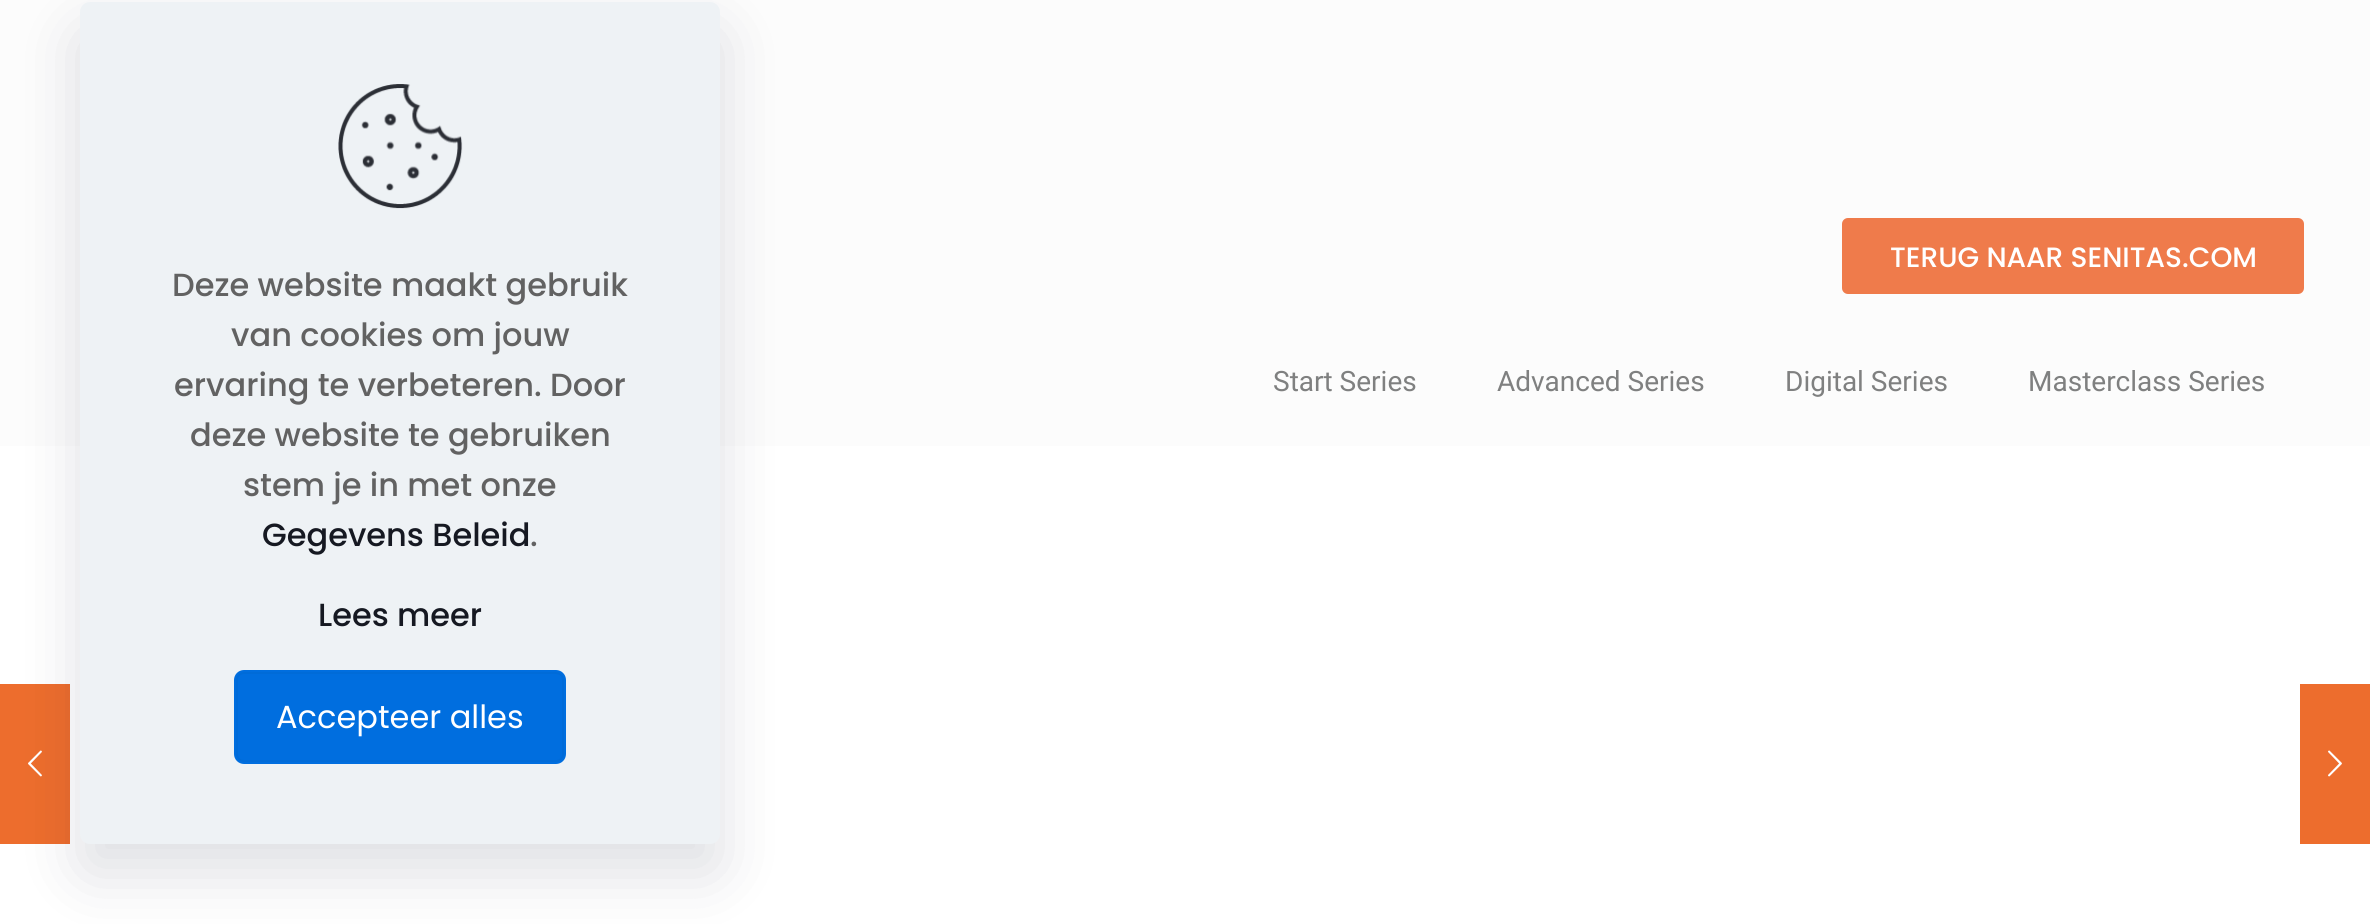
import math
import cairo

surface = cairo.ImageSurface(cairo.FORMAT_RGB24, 2370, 924)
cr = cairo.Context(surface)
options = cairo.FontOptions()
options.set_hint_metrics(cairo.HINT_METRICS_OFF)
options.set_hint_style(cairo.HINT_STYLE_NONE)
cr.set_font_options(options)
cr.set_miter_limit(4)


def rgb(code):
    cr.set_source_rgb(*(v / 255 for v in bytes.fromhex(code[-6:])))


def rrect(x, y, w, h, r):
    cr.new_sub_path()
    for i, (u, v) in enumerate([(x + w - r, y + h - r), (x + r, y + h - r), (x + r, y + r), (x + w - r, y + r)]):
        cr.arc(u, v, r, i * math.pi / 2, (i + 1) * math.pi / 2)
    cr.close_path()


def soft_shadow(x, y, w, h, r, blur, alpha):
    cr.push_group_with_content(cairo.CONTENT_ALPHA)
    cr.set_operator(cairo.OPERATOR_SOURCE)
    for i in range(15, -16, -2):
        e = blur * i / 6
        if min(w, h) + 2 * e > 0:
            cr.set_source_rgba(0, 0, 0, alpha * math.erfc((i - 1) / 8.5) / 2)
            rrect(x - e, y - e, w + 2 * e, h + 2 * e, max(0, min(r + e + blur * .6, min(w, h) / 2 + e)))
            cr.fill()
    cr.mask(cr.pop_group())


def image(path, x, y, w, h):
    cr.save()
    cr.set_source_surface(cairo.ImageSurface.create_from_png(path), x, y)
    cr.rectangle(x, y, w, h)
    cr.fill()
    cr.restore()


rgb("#fcfcfc")
cr.paint()
rgb("#ffffff")
cr.rectangle(0, 446, 2370, 478)
cr.fill()
rgb("#ed6d2d")
cr.rectangle(0, 684, 70, 160)
cr.fill()
image("img/2.png", 28, 750, 14, 27)
rgb("#010727")
soft_shadow(80, 32, 640, 842, 10, 30, 0.13)
rgb("#eef2f5")
rrect(80, 2, 640, 842, 10)
cr.fill()
image("img/1.png", 338, 84, 125, 125)
rgb("#006edf")
rrect(234, 670, 332, 94, 10)
cr.fill()
rrect(237, 673, 326, 88, 7)
rgb("#006bd8")
cr.stroke()
rgb("#ef7b4b")
rrect(1842, 218, 462, 76, 6)
cr.fill()
rgb("#ed6d2d")
cr.rectangle(2300, 684, 70, 160)
cr.fill()
image("img/3.png", 2328, 750, 14, 27)
cr.select_font_face("Poppins Medium")
cr.set_font_size(32)
rgb("#626262")
for x, y, s in [
    (172, 296, "Deze website maakt gebruik"),
    (231, 346, "van cookies om jouw"),
    (174, 396, "ervaring te verbeteren. Door"),
    (190, 446, "deze website te gebruiken"),
    (243, 496, "stem je in met onze"),
]:
    cr.move_to(x, y)
    cr.show_text(s)
rgb("#161922")
cr.move_to(262, 546)
cr.show_text("Gegevens Beleid")
rgb("#626262")
cr.move_to(530, 546)
cr.show_text(".")
rgb("#161922")
cr.move_to(318, 626)
cr.show_text("Lees meer")
cr.select_font_face("Poppins")
rgb("#ffffff")
cr.move_to(276, 728)
cr.show_text("Accepteer alles")
cr.select_font_face("Poppins Medium")
cr.set_font_size(28)
cr.move_to(1890, 267)
cr.show_text("TERUG NAAR SENITAS.COM")
cr.select_font_face("Roboto")
rgb("#7f8080")
for x, y, s in [
    (1273, 391, "Start Series"),
    (1497, 391, "Advanced Series"),
    (1785, 391, "Digital Series"),
    (2028, 391, "Masterclass Series"),
]:
    cr.move_to(x, y)
    cr.show_text(s)
surface.write_to_png("page.png")
